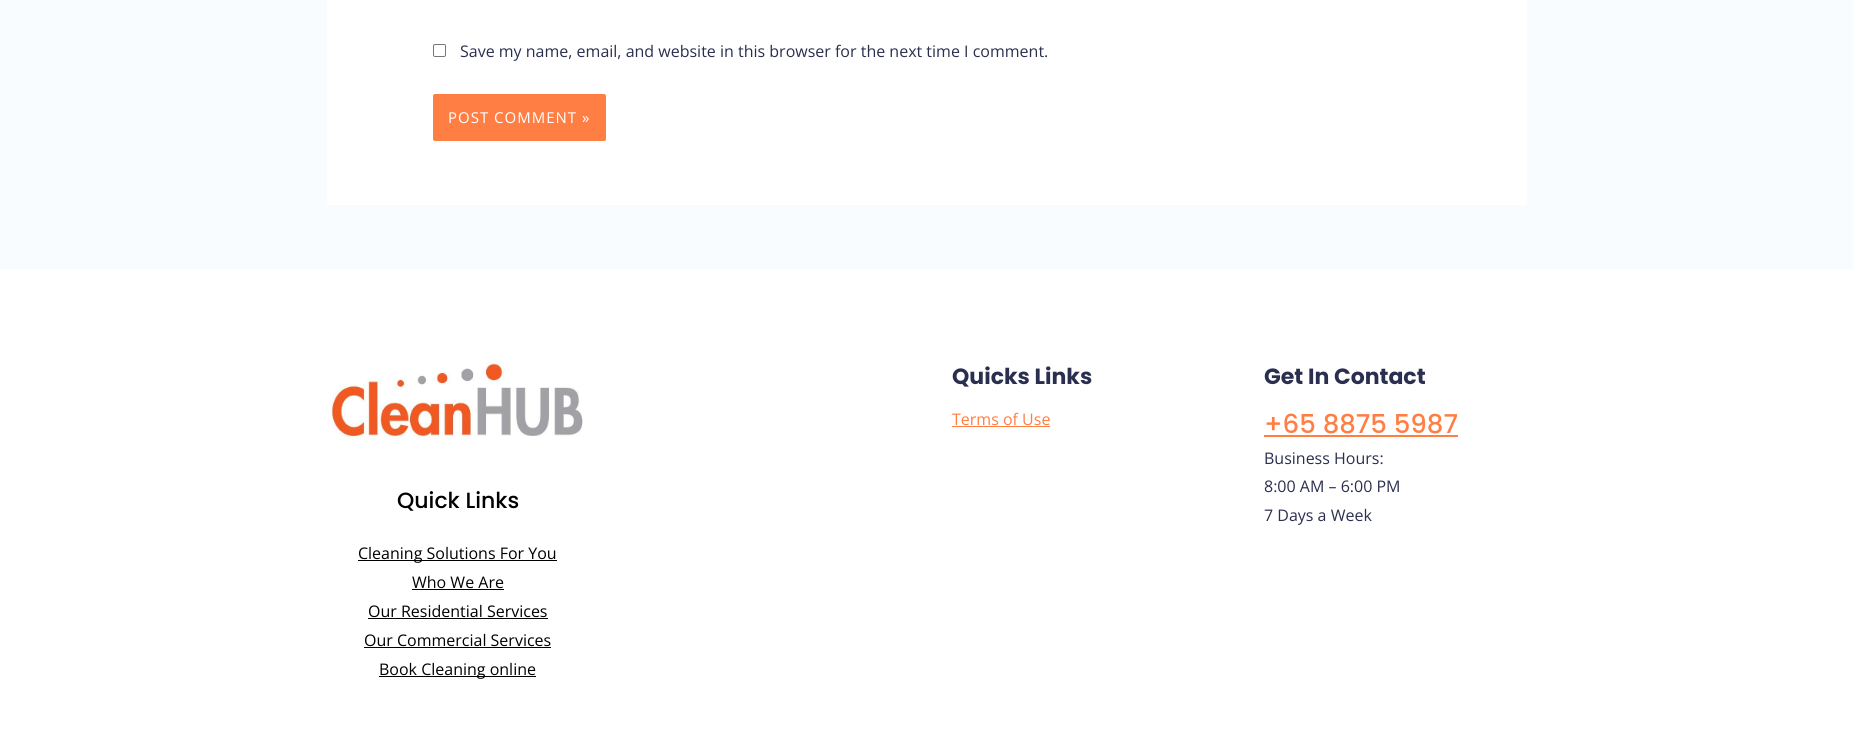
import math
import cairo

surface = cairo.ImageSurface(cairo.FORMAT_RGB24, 1853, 737)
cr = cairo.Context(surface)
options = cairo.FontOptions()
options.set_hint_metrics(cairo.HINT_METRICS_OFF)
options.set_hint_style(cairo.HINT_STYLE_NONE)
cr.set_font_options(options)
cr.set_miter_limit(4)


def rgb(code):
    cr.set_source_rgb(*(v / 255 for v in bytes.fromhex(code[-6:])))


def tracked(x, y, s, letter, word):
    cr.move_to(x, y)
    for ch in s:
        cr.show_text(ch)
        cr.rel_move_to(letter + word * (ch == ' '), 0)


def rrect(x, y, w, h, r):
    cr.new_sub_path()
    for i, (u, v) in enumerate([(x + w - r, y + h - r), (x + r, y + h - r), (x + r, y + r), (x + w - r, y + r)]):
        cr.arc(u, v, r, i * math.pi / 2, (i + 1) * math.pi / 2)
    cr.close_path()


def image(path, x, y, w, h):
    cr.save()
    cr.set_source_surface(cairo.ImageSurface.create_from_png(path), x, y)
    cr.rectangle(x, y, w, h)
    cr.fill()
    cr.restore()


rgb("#f8fcfe")
cr.paint()
rgb("#ffffff")
cr.rectangle(327, 0, 1200, 205)
cr.fill()
rrect(433.5, 44.5, 12, 12, 1.5)
rgb("#767676")
cr.set_line_width(1)
cr.stroke()
rgb("#ff7e44")
rrect(433, 94, 173, 47, 2)
cr.fill()
for x, y, w, h, color in [
    (0, 269, 1853, 468, "#ffffff"),
    (952, 426, 98, 1, "#ff7e44"),
    (1264, 435, 194, 2, "#ff7e44"),
]:
    rgb(color)
    cr.rectangle(x, y, w, h)
    cr.fill()
image("img/1.png", 327, 359, 256, 81)
for x, y, w, h, color in [
    (358, 560, 199, 1, "#000000"),
    (412, 589, 92, 1, "#000000"),
    (368, 618, 180, 1, "#000000"),
    (364, 647, 187, 1, "#000000"),
    (379, 676, 157, 1, "#000000"),
]:
    rgb(color)
    cr.rectangle(x, y, w, h)
    cr.fill()
cr.select_font_face("Open Sans")
cr.set_font_size(16)
rgb("#2a2f4f")
cr.move_to(460, 57)
cr.show_text("Save my name, email, and website in this browser for the next time I comment.")
cr.set_font_size(15)
rgb("#ffffff")
tracked(448, 123, "POST COMMENT »", 1, 0)
cr.select_font_face("Poppins", cairo.FONT_SLANT_NORMAL, cairo.FONT_WEIGHT_BOLD)
cr.set_font_size(22)
rgb("#2a2f4f")
cr.move_to(952, 384)
cr.show_text("Quicks Links")
cr.select_font_face("Open Sans")
cr.set_font_size(16)
rgb("#ff7e44")
cr.move_to(952, 425)
cr.show_text("Terms of Use")
cr.select_font_face("Poppins", cairo.FONT_SLANT_NORMAL, cairo.FONT_WEIGHT_BOLD)
cr.set_font_size(22)
rgb("#2a2f4f")
cr.move_to(1264, 384)
cr.show_text("Get In Contact")
cr.select_font_face("Poppins Medium")
cr.set_font_size(26)
rgb("#ff7e44")
cr.move_to(1264, 433)
cr.show_text("+65 8875 5987")
cr.select_font_face("Open Sans")
cr.set_font_size(16)
rgb("#2a2f4f")
for x, y, s in [
    (1264, 464, "Business Hours:"),
    (1264, 492, "8:00 AM – 6:00 PM"),
    (1264, 521, "7 Days a Week"),
]:
    cr.move_to(x, y)
    cr.show_text(s)
cr.select_font_face("Poppins Medium")
cr.set_font_size(22)
rgb("#000000")
cr.move_to(397, 508)
cr.show_text("Quick Links")
cr.select_font_face("Open Sans")
cr.set_font_size(16)
for x, y, s in [
    (358, 559, "Cleaning Solutions For You"),
    (412, 588, "Who We Are"),
    (368, 617, "Our Residential Services"),
    (364, 646, "Our Commercial Services"),
    (379, 675, "Book Cleaning online"),
]:
    cr.move_to(x, y)
    cr.show_text(s)
surface.write_to_png("page.png")
